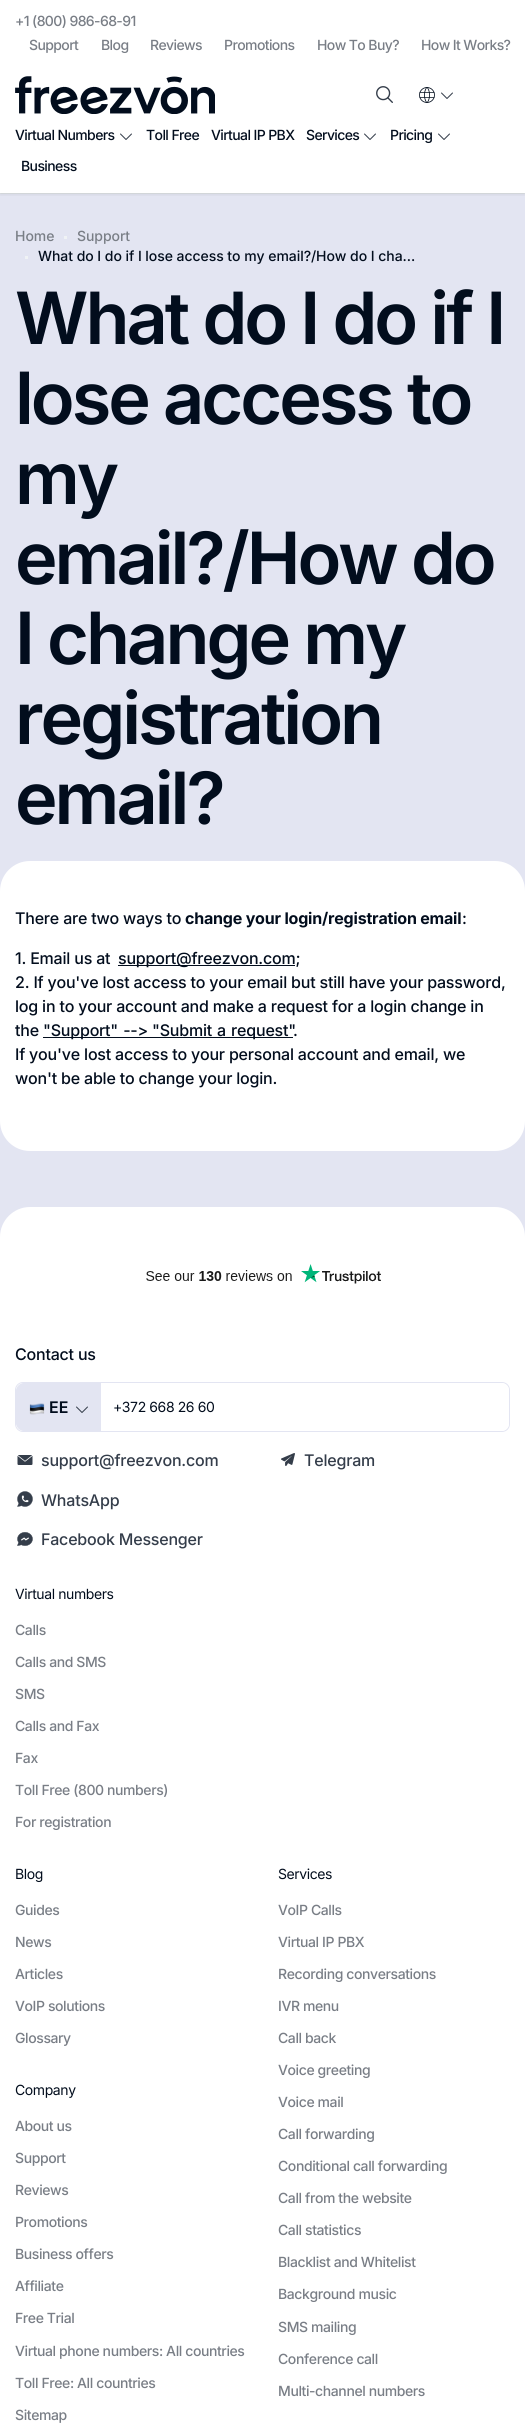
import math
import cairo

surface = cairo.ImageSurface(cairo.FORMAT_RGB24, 525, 2432)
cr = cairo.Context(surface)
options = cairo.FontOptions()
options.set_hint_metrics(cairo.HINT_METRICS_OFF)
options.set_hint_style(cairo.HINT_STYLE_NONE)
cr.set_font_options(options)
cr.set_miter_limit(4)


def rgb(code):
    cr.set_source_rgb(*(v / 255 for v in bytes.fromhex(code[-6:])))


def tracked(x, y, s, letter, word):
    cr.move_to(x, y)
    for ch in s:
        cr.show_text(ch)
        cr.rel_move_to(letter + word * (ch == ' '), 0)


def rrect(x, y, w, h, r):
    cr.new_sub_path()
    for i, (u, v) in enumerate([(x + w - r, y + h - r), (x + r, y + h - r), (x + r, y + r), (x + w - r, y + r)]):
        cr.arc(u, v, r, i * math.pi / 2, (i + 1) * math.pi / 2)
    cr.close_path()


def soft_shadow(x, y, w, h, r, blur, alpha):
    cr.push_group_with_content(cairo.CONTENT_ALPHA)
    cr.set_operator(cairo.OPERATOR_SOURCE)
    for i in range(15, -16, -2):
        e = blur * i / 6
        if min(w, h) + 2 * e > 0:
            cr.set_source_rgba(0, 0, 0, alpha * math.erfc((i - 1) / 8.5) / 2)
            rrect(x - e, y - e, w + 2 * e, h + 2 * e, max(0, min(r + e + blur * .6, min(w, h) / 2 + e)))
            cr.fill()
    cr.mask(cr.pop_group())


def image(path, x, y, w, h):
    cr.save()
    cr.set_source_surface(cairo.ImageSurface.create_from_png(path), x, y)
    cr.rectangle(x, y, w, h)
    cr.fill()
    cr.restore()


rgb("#e3e5f2")
cr.paint()
rgb("#ffffff")
cr.rectangle(0, 0, 525, 193)
cr.fill()
rgb("#dee2e6")
cr.rectangle(0, 193, 525, 1)
cr.fill()
cr.save()
cr.rectangle(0, 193, 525, 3)
cr.clip()
rgb("#000000")
soft_shadow(0, 66, 525, 129, 0, 2, 0.07)
cr.restore()
image("img/1.png", 15, 76, 200, 38)
image("img/2.png", 376, 86, 17, 17)
image("img/3.png", 419, 87, 16, 16)
cr.new_path()
cr.move_to(441.5, 93)
cr.line_to(447, 98.5)
cr.line_to(452.5, 93)
rgb("#343d4a")
cr.set_line_width(1)
cr.set_line_cap(cairo.LINE_CAP_ROUND)
cr.set_line_join(cairo.LINE_JOIN_ROUND)
cr.stroke()
cr.new_path()
cr.move_to(120.5, 134)
cr.line_to(126, 139.5)
cr.line_to(131.5, 134)
cr.stroke()
cr.new_path()
cr.move_to(364.5, 134)
cr.line_to(370, 139.5)
cr.line_to(375.5, 134)
cr.stroke()
cr.new_path()
cr.move_to(438.5, 134)
cr.line_to(444, 139.5)
cr.line_to(449.5, 134)
cr.stroke()
rgb("#f0f3f5")
cr.rectangle(64, 236, 3, 3)
cr.fill()
cr.rectangle(25, 256, 3, 3)
cr.fill()
rgb("#ffffff")
rrect(0, 861, 525, 290, 30)
cr.fill()
rgb("#020d1d")
cr.rectangle(118, 965, 177, 1)
cr.fill()
cr.rectangle(43, 1037, 250, 1)
cr.fill()
rgb("#ffffff")
cr.new_path()
cr.move_to(30, 1207)
cr.line_to(495, 1207)
cr.curve_to(511.5, 1207, 525, 1220.5, 525, 1237)
cr.line_to(525, 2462)
cr.line_to(0, 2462)
cr.line_to(0, 1237)
cr.curve_to(0, 1220.5, 13.5, 1207, 30, 1207)
cr.close_path()
cr.fill()
image("img/4.png", 146, 1264, 235, 20)
rrect(15.5, 1382.5, 494, 49, 7.5)
rgb("#e3e5f2")
cr.set_line_cap(cairo.LINE_CAP_BUTT)
cr.set_line_join(cairo.LINE_JOIN_MITER)
cr.stroke()
cr.new_path()
cr.move_to(24, 1383.5)
cr.line_to(100.5, 1383.5)
cr.line_to(100.5, 1430.5)
cr.line_to(24, 1430.5)
cr.curve_to(20, 1430.5, 16.5, 1427, 16.5, 1423)
cr.line_to(16.5, 1391)
cr.curve_to(16.5, 1387, 20, 1383.5, 24, 1383.5)
cr.close_path()
cr.fill_preserve()
cr.stroke()
image("img/5.png", 29, 1403, 16, 12)
cr.new_path()
cr.move_to(76.5, 1407)
cr.line_to(82, 1412.5)
cr.line_to(87.5, 1407)
rgb("#343d4a")
cr.set_line_cap(cairo.LINE_CAP_ROUND)
cr.set_line_join(cairo.LINE_JOIN_ROUND)
cr.stroke()
rgb("#ffffff")
cr.new_path()
cr.move_to(101, 1383)
cr.line_to(501, 1383)
cr.curve_to(505.5, 1383, 509, 1386.5, 509, 1391)
cr.line_to(509, 1423)
cr.curve_to(509, 1427.5, 505.5, 1431, 501, 1431)
cr.line_to(101, 1431)
cr.close_path()
cr.fill()
image("img/6.png", 17, 1455, 16, 10)
image("img/7.png", 281, 1453, 14, 13)
image("img/8.png", 17, 1491, 16, 16)
image("img/9.png", 17, 1532, 16, 14)
cr.select_font_face("Inter Medium")
cr.set_font_size(14)
rgb("#797e86")
for x, y, s in [
    (15, 26, "+1 (800) 986-68-91"),
    (29, 50, "Support"),
    (101, 50, "Blog"),
    (150, 50, "Reviews"),
    (224, 50, "Promotions"),
    (317, 50, "How To Buy?"),
    (421, 50, "How It Works?"),
]:
    tracked(x, y, s, -0.6, 0)
rgb("#020d1d")
for x, y, s in [
    (15, 140, "Virtual Numbers"),
    (146, 140, "Toll Free"),
    (211, 140, "Virtual IP PBX"),
    (306, 140, "Services"),
    (390, 140, "Pricing"),
    (21, 171, "Business"),
]:
    tracked(x, y, s, -0.6, 0)
rgb("#797e86")
tracked(15, 241, "Home", -0.05, 0)
tracked(77, 241, "Support", -0.05, 0)
rgb("#020d1d")
tracked(38, 261, "What do I do if I lose access to my email?/How do I cha…", -0.05, 0)
cr.select_font_face("Inter SemiBold")
cr.set_font_size(72)
for x, y, s in [
    (15, 344, "What do I do if I"),
    (15, 424, "lose access to"),
    (15, 504, "my"),
    (15, 584, "email?/How do"),
    (15, 664, "I change my"),
    (15, 744, "registration"),
    (15, 824, "email?"),
]:
    tracked(x, y, s, -3, 0)
cr.select_font_face("Inter Medium")
cr.set_font_size(16)
tracked(15, 924, "There are two ways to", -0.2, 0)
cr.select_font_face("Inter", cairo.FONT_SLANT_NORMAL, cairo.FONT_WEIGHT_BOLD)
tracked(185, 924, "change your login/registration email", -0.2, 0)
cr.select_font_face("Inter Medium")
for x, y, s in [
    (462, 924, ":"),
    (15, 964, "1. Email us at"),
    (118, 964, "support@freezvon.com;"),
    (15, 988, "2. If you've lost access to your email but still have your password,"),
    (15, 1012, "log in to your account and make a request for a login change in"),
    (15, 1036, "the"),
]:
    tracked(x, y, s, -0.2, 0)
tracked(43, 1036, "\"Support\" -->", -0.2, 1)
tracked(152, 1036, "\"Submit a request\"", -0.2, 1)
for x, y, s in [
    (293, 1036, "."),
    (15, 1060, "If you've lost access to your personal account and email, we"),
    (15, 1084, "won't be able to change your login."),
    (15, 1360, "Contact us"),
]:
    tracked(x, y, s, -0.2, 0)
cr.select_font_face("Inter SemiBold")
cr.move_to(49, 1413)
cr.show_text("EE")
cr.select_font_face("Inter")
cr.set_font_size(14)
tracked(113, 1412, "+372 668 26 60", -0.4, 0)
cr.select_font_face("Inter Medium")
cr.set_font_size(16)
rgb("#343d4a")
for x, y, s in [
    (41, 1466, "support@freezvon.com"),
    (304, 1466, "Telegram"),
    (41, 1506, "WhatsApp"),
    (41, 1545, "Facebook Messenger"),
]:
    tracked(x, y, s, -0.2, 0)
cr.select_font_face("Inter")
cr.set_font_size(14)
rgb("#020d1d")
tracked(15, 1599, "Virtual numbers", -0.4, 0)
cr.select_font_face("Inter Medium")
rgb("#797e86")
for x, y, s in [
    (15, 1635, "Сalls"),
    (15, 1667, "Calls and SMS"),
    (15, 1699, "SMS"),
    (15, 1731, "Calls and Fax"),
    (15, 1763, "Fax"),
    (15, 1795, "Toll Free (800 numbers)"),
    (15, 1827, "For registration"),
]:
    tracked(x, y, s, -0.4, 0)
cr.select_font_face("Inter")
rgb("#020d1d")
tracked(15, 1879, "Blog", -0.4, 0)
cr.select_font_face("Inter Medium")
rgb("#797e86")
for x, y, s in [
    (15, 1915, "Guides"),
    (15, 1947, "News"),
    (15, 1979, "Articles"),
    (15, 2011, "VoIP solutions"),
    (15, 2043, "Glossary"),
]:
    tracked(x, y, s, -0.4, 0)
cr.select_font_face("Inter")
rgb("#020d1d")
tracked(15, 2095, "Company", -0.4, 0)
cr.select_font_face("Inter Medium")
rgb("#797e86")
for x, y, s in [
    (15, 2131, "About us"),
    (15, 2163, "Support"),
    (15, 2195, "Reviews"),
    (15, 2227, "Promotions"),
    (15, 2259, "Business offers"),
    (15, 2291, "Affiliate"),
    (15, 2323, "Free Trial"),
    (15, 2356, "Virtual phone numbers: All countries"),
    (15, 2388, "Toll Free: All countries"),
    (15, 2420, "Sitemap"),
]:
    tracked(x, y, s, -0.4, 0)
cr.select_font_face("Inter")
rgb("#020d1d")
tracked(278, 1879, "Services", -0.4, 0)
cr.select_font_face("Inter Medium")
rgb("#797e86")
for x, y, s in [
    (278, 1915, "VoIP Calls"),
    (278, 1947, "Virtual IP PBX"),
    (278, 1979, "Recording conversations"),
    (278, 2011, "IVR menu"),
    (278, 2043, "Call back"),
    (278, 2075, "Voice greeting"),
    (278, 2107, "Voice mail"),
    (278, 2139, "Call forwarding"),
    (278, 2171, "Conditional call forwarding"),
    (278, 2203, "Call from the website"),
    (278, 2235, "Call statistics"),
    (278, 2267, "Blacklist and Whitelist"),
    (278, 2299, "Background music"),
    (278, 2332, "SMS mailing"),
    (278, 2364, "Conference call"),
    (278, 2396, "Multi-channel numbers"),
]:
    tracked(x, y, s, -0.4, 0)
surface.write_to_png("page.png")
